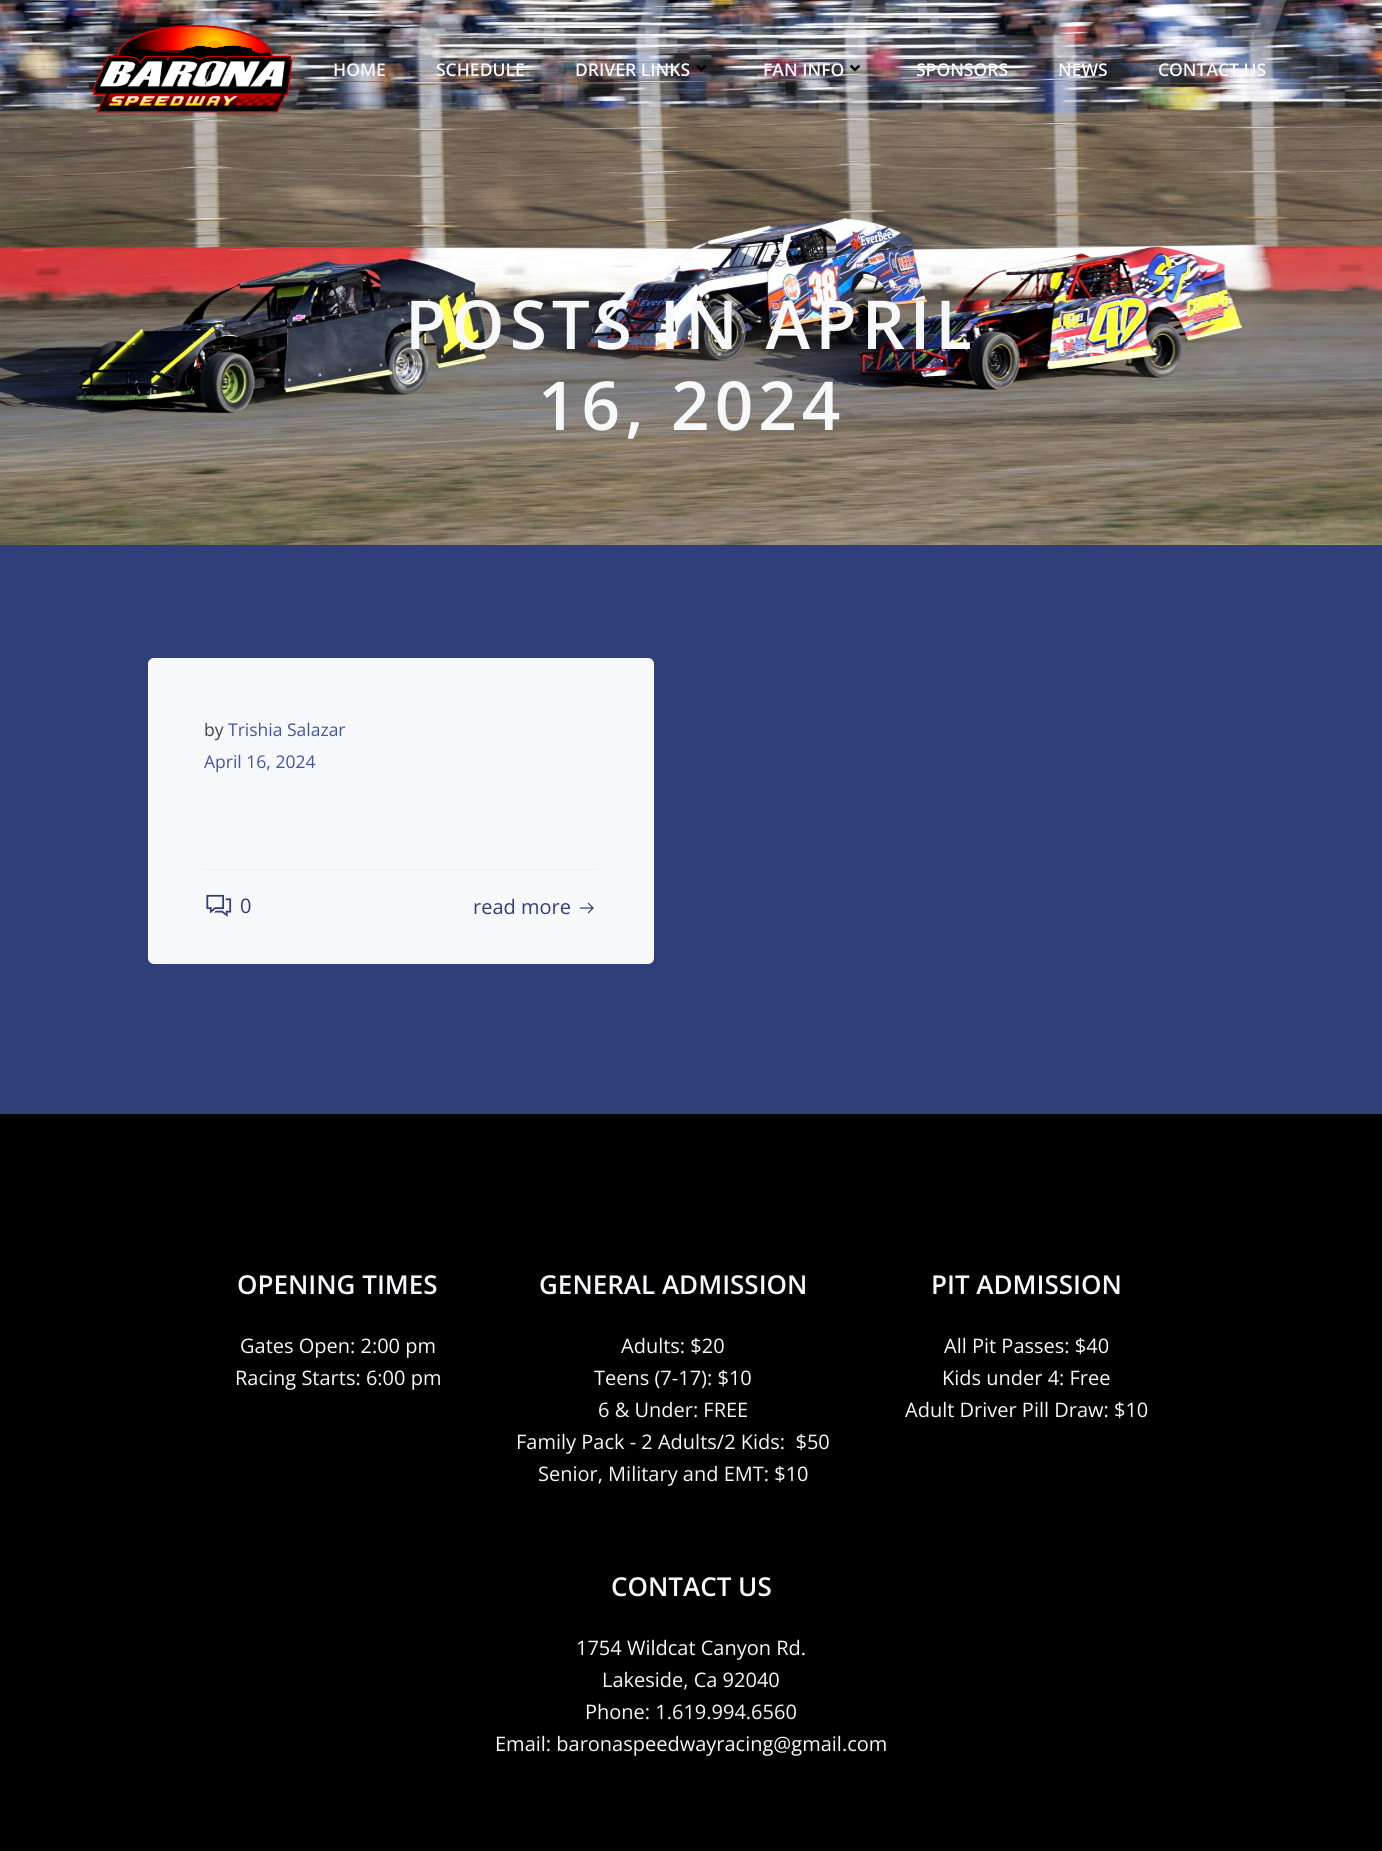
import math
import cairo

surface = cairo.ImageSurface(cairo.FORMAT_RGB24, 1382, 1851)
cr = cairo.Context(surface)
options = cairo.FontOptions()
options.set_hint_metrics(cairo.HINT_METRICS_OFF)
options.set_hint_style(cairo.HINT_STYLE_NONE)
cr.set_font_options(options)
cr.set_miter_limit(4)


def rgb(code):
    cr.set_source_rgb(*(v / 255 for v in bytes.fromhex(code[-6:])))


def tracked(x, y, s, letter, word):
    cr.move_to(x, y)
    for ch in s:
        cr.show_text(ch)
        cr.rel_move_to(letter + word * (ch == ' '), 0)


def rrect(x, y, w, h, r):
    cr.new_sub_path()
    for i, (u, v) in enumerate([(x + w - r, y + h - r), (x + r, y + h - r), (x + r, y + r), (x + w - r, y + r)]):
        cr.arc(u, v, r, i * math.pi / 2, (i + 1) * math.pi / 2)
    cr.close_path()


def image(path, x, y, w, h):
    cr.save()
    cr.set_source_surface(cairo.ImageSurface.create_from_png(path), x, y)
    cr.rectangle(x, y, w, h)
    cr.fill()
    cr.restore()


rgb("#ffffff")
cr.paint()
image("img/4.png", 0, 0, 1382, 545)
image("img/1.png", 91, 25, 202, 88)
image("img/2.png", 696, 65, 11, 7)
image("img/3.png", 850, 64, 10, 8)
rgb("#303e7a")
cr.rectangle(0, 545, 1382, 569)
cr.fill()
rgb("#f6f8fa")
rrect(148, 658, 506, 306, 6)
cr.fill()
rgb("#eeeeee")
cr.rectangle(204, 869, 394, 1)
cr.fill()
image("img/5.png", 206, 894, 26, 23)
image("img/6.png", 579, 902, 15, 12)
rgb("#000000")
cr.rectangle(0, 1114, 1382, 737)
cr.fill()
cr.select_font_face("Open Sans SemiBold")
cr.set_font_size(17.5)
rgb("#f6f8fa")
for x, y, s in [
    (333, 76, "HOME"),
    (436, 76, "SCHEDULE"),
    (575, 76, "DRIVER LINKS"),
    (763, 76, "FAN INFO"),
    (916, 76, "SPONSORS"),
    (1058, 76, "NEWS"),
    (1158, 76, "CONTACT US"),
]:
    cr.move_to(x, y)
    cr.show_text(s)
cr.set_font_size(67.5)
tracked(405, 349, "POSTS IN APRIL", 5, 0)
tracked(538, 430, "16, 2024", 5, 0)
cr.select_font_face("Open Sans")
cr.set_font_size(17.5)
rgb("#3c4154")
cr.move_to(204, 736)
cr.show_text("by")
rgb("#4055a9")
cr.move_to(228, 736)
cr.show_text("Trishia Salazar")
cr.move_to(204, 768)
cr.show_text("April 16, 2024")
cr.set_font_size(20)
rgb("#303e7a")
cr.move_to(240, 913)
cr.show_text("0")
cr.move_to(473, 914)
cr.show_text("read more")
cr.select_font_face("Open Sans SemiBold")
cr.set_font_size(26)
rgb("#f6f8fa")
cr.move_to(237, 1294)
cr.show_text("OPENING TIMES")
cr.select_font_face("Open Sans")
cr.set_font_size(20)
cr.move_to(240, 1353)
cr.show_text("Gates Open: 2:00 pm")
cr.move_to(235, 1385)
cr.show_text("Racing Starts: 6:00 pm")
cr.select_font_face("Open Sans SemiBold")
cr.set_font_size(26)
cr.move_to(539, 1294)
cr.show_text("GENERAL ADMISSION")
cr.select_font_face("Open Sans")
cr.set_font_size(20)
for x, y, s in [
    (621, 1353, "Adults: $20"),
    (594, 1385, "Teens (7-17): $10"),
    (598, 1417, "6 & Under: FREE"),
    (516, 1449, "Family Pack - 2 Adults/2 Kids:  $50"),
    (538, 1481, "Senior, Military and EMT: $10"),
]:
    cr.move_to(x, y)
    cr.show_text(s)
cr.select_font_face("Open Sans SemiBold")
cr.set_font_size(26)
cr.move_to(931, 1294)
cr.show_text("PIT ADMISSION")
cr.select_font_face("Open Sans")
cr.set_font_size(20)
for x, y, s in [
    (944, 1353, "All Pit Passes: $40"),
    (942, 1385, "Kids under 4: Free"),
    (905, 1417, "Adult Driver Pill Draw: $10"),
]:
    cr.move_to(x, y)
    cr.show_text(s)
cr.select_font_face("Open Sans SemiBold")
cr.set_font_size(26)
cr.move_to(611, 1596)
cr.show_text("CONTACT US")
cr.select_font_face("Open Sans")
cr.set_font_size(20)
for x, y, s in [
    (576, 1655, "1754 Wildcat Canyon Rd."),
    (602, 1687, "Lakeside, Ca 92040"),
    (585, 1719, "Phone: 1.619.994.6560"),
    (495, 1751, "Email: baronaspeedwayracing@gmail.com"),
]:
    cr.move_to(x, y)
    cr.show_text(s)
surface.write_to_png("page.png")
